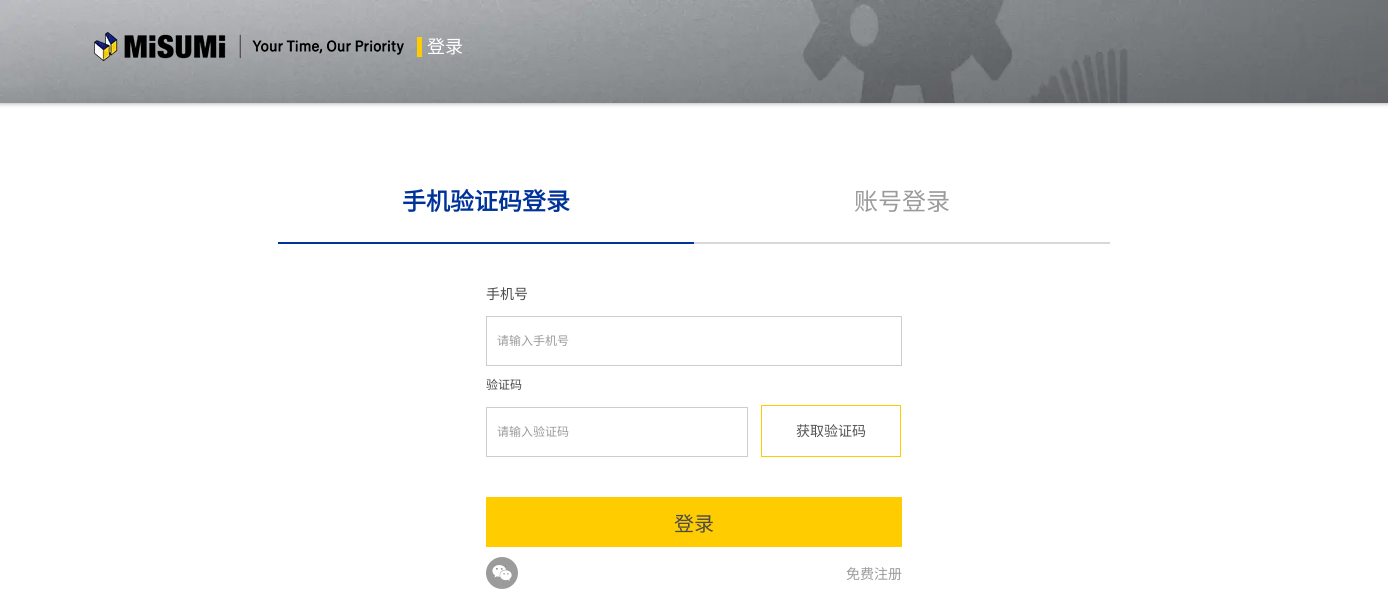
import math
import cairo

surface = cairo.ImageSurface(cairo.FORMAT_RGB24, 1388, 610)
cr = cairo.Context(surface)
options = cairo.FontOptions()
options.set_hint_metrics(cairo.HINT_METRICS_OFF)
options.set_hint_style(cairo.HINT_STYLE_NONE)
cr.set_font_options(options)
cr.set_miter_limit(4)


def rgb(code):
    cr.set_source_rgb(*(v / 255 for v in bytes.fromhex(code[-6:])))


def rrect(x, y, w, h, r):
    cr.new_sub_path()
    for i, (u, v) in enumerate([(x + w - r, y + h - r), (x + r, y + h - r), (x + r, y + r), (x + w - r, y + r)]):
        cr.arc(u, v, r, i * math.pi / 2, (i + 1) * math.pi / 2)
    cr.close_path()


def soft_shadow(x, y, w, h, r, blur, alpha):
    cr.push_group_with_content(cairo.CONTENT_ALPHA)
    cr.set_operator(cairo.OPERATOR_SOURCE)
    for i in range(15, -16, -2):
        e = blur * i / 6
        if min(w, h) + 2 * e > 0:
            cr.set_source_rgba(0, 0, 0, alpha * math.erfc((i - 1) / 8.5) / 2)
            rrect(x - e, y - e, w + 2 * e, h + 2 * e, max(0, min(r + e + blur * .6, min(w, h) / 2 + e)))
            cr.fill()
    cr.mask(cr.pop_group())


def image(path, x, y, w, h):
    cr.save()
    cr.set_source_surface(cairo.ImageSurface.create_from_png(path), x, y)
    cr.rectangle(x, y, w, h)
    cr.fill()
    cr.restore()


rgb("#ffffff")
cr.paint()
rgb("#000000")
soft_shadow(0, 0, 1388, 103, 0, 2.5, 0.4)
image("img/1.png", 0, 0, 1388, 103)
image("img/2.png", 94, 32, 310, 29)
for x, y, w, h, color in [
    (417, 37, 5, 20, "#ffcc00"),
    (278, 242, 416, 2, "#003399"),
    (694, 242, 416, 2, "#d8d8d8"),
]:
    rgb(color)
    cr.rectangle(x, y, w, h)
    cr.fill()
cr.rectangle(486.5, 316.5, 415, 49)
rgb("#cdcdcd")
cr.set_line_width(1)
cr.stroke()
cr.rectangle(486.5, 407.5, 261, 49)
cr.stroke()
cr.rectangle(761.5, 405.5, 139, 51)
rgb("#ffcc00")
cr.stroke()
cr.rectangle(486, 497, 416, 50)
cr.fill()
image("img/3.png", 486, 557, 32, 32)
cr.select_font_face("Noto Sans CJK SC")
cr.set_font_size(18)
rgb("#ffffff")
cr.move_to(427, 53)
cr.show_text("登录")
cr.select_font_face("Noto Sans CJK SC", cairo.FONT_SLANT_NORMAL, cairo.FONT_WEIGHT_BOLD)
cr.set_font_size(24)
rgb("#003399")
cr.move_to(402, 210)
cr.show_text("手机验证码登录")
cr.select_font_face("Noto Sans CJK SC")
rgb("#9b9b9b")
cr.move_to(854, 210)
cr.show_text("账号登录")
cr.set_font_size(14)
rgb("#4a4a4a")
cr.move_to(486, 299)
cr.show_text("手机号")
cr.set_font_size(12)
rgb("#9b9b9b")
cr.move_to(497, 345)
cr.show_text("请输入手机号")
rgb("#4a4a4a")
cr.move_to(486, 389)
cr.show_text("验证码")
rgb("#9b9b9b")
cr.move_to(497, 436)
cr.show_text("请输入验证码")
cr.set_font_size(14)
rgb("#545454")
cr.move_to(796, 436)
cr.show_text("获取验证码")
cr.set_font_size(20)
rgb("#4a4a4a")
cr.move_to(674, 531)
cr.show_text("登录")
cr.set_font_size(14)
rgb("#9b9b9b")
cr.move_to(846, 579)
cr.show_text("免费注册")
surface.write_to_png("page.png")
